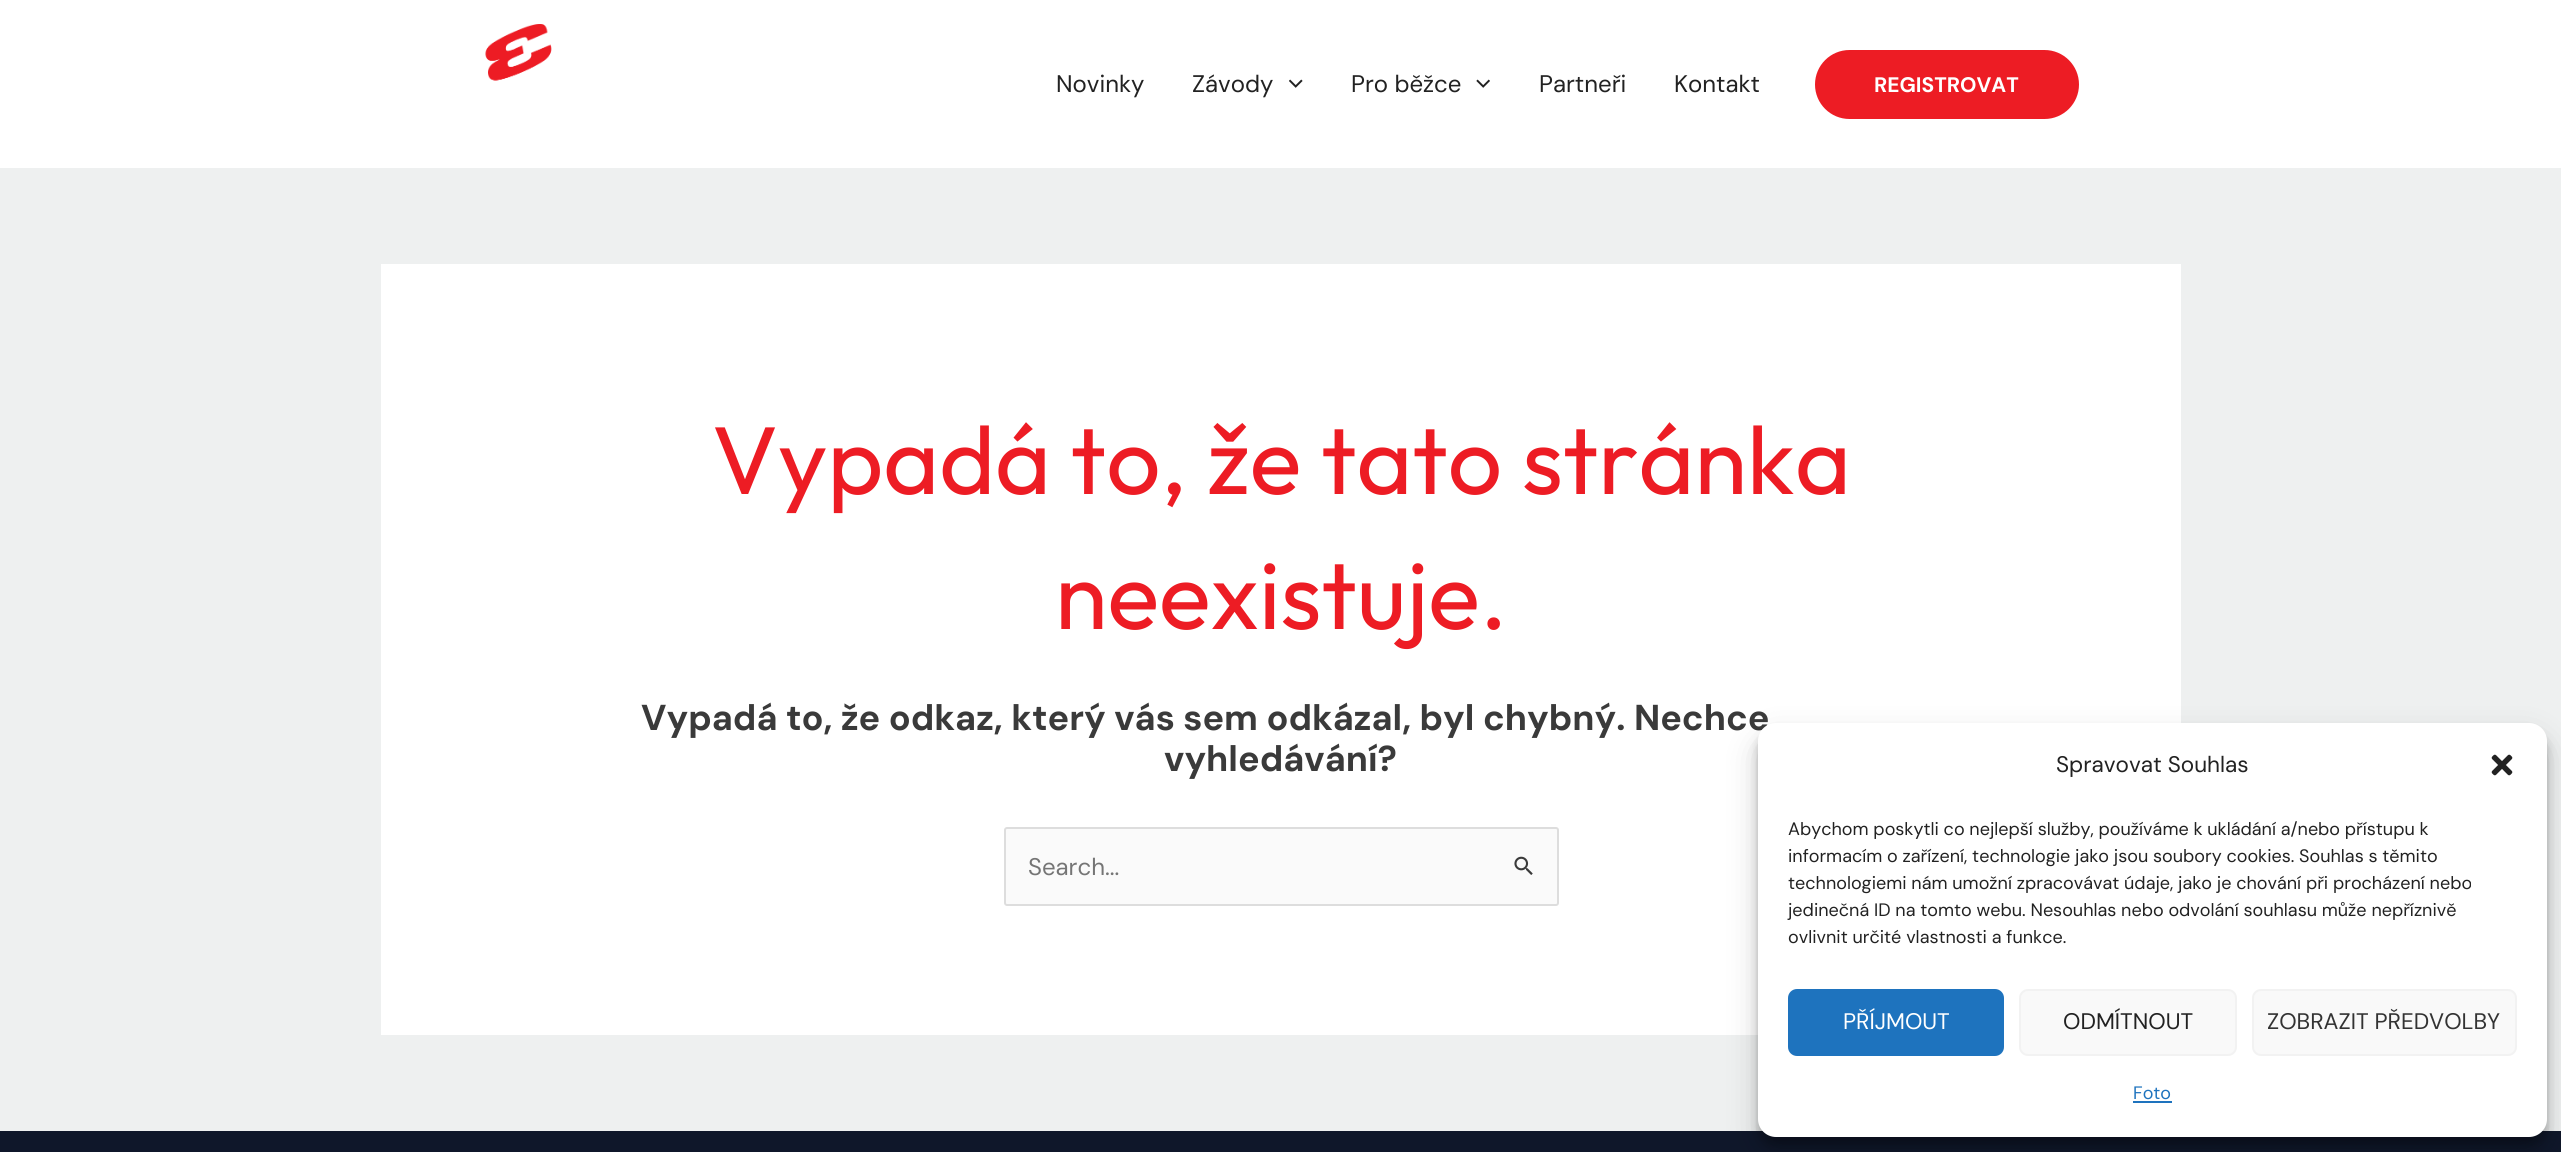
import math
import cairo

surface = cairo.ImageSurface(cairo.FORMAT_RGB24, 2561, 1152)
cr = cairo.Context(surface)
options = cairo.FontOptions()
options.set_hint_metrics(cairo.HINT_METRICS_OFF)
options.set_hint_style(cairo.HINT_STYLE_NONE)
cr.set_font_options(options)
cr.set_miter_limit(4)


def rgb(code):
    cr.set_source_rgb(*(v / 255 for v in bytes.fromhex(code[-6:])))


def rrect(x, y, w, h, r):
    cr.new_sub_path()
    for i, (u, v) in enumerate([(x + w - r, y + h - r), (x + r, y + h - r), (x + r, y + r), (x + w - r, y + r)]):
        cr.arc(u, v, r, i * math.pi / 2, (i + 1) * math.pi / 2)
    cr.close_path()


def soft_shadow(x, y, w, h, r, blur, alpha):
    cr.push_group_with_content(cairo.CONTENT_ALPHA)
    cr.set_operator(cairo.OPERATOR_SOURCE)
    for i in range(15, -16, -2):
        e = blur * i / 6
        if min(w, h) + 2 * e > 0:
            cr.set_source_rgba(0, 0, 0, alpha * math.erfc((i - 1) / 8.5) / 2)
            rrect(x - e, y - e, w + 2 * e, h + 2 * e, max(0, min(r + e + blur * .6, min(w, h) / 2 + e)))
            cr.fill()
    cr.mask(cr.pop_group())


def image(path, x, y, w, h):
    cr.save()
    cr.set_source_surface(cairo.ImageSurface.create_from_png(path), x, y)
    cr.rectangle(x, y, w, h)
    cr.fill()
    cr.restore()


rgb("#eef0f0")
cr.paint()
rgb("#ffffff")
cr.rectangle(0, 0, 2561, 168)
cr.fill()
image("img/1.png", 485, 24, 67, 57)
image("img/2.png", 1289, 79, 14, 9)
image("img/3.png", 1476, 79, 14, 9)
rgb("#ed1c24")
rrect(1815, 50, 264, 69, 34.5)
cr.fill()
rgb("#ffffff")
cr.rectangle(381, 264, 1800, 771)
cr.fill()
rgb("#fafafa")
rrect(1005, 828, 553, 77, 2)
cr.fill_preserve()
rgb("#dddddd")
cr.stroke()
image("img/4.png", 1514, 856, 19, 19)
rgb("#0f172a")
cr.rectangle(0, 1131, 2561, 21)
cr.fill()
rgb("#000000")
soft_shadow(1758, 732, 789, 414, 18, 4.5, 0.23)
soft_shadow(1758, 738, 789, 414, 18, 15, 0.19)
cr.select_font_face("DM Sans")
cr.set_font_size(24)
rgb("#222222")
for x, y, s in [
    (1056, 92, "Novinky"),
    (1192, 92, "Závody"),
    (1351, 92, "Pro běžce"),
    (1539, 92, "Partneři"),
    (1674, 92, "Kontakt"),
]:
    cr.move_to(x, y)
    cr.show_text(s)
cr.select_font_face("DM Sans", cairo.FONT_SLANT_NORMAL, cairo.FONT_WEIGHT_BOLD)
cr.set_font_size(21)
rgb("#ffffff")
cr.move_to(1874, 92)
cr.show_text("REGISTROVAT")
cr.select_font_face("Outfit")
cr.set_font_size(96)
rgb("#ed1c24")
cr.move_to(712, 494)
cr.show_text("Vypadá to, že tato stránka")
cr.move_to(1055, 629)
cr.show_text("neexistuje.")
cr.select_font_face("DM Sans", cairo.FONT_SLANT_NORMAL, cairo.FONT_WEIGHT_BOLD)
cr.set_font_size(36)
rgb("#3a3a3a")
cr.move_to(641, 730)
cr.show_text("Vypadá to, že odkaz, který vás sem odkázal, byl chybný. Nechce")
cr.move_to(1164, 771)
cr.show_text("vyhledávání?")
cr.select_font_face("DM Sans")
cr.set_font_size(24)
rgb("#757575")
cr.move_to(1028, 875)
cr.show_text("Search...")
rgb("#ffffff")
rrect(1758, 723, 789, 414, 18)
cr.fill()
cr.set_font_size(22.5)
rgb("#222222")
cr.move_to(2056, 772)
cr.show_text("Spravovat Souhlas")
image("img/5.png", 2491, 754, 22, 22)
cr.set_font_size(18)
for x, y, s in [
    (1788, 835, "Abychom poskytli co nejlepší služby, používáme k ukládání a/nebo přístupu k"),
    (1788, 862, "informacím o zařízení, technologie jako jsou soubory cookies. Souhlas s těmito"),
    (1788, 889, "technologiemi nám umožní zpracovávat údaje, jako je chování při procházení nebo"),
    (1788, 916, "jedinečná ID na tomto webu. Nesouhlas nebo odvolání souhlasu může nepříznivě"),
    (1788, 943, "ovlivnit určité vlastnosti a funkce."),
]:
    cr.move_to(x, y)
    cr.show_text(s)
rgb("#1e73be")
rrect(1789, 990, 214, 65, 8)
cr.fill_preserve()
cr.stroke()
cr.set_font_size(22.5)
rgb("#ffffff")
cr.move_to(1843, 1029)
cr.show_text("PŘÍJMOUT")
rgb("#f9f9f9")
rrect(2020, 990, 216, 65, 8)
cr.fill_preserve()
rgb("#f2f2f2")
cr.stroke()
rgb("#222222")
cr.move_to(2063, 1029)
cr.show_text("ODMÍTNOUT")
rgb("#f9f9f9")
rrect(2253, 990, 263, 65, 8)
cr.fill_preserve()
rgb("#f2f2f2")
cr.stroke()
rgb("#333333")
cr.move_to(2267, 1029)
cr.show_text("ZOBRAZIT PŘEDVOLBY")
cr.set_font_size(18)
rgb("#1e73be")
cr.move_to(2133, 1099)
cr.show_text("Foto")
cr.rectangle(2133, 1101, 39, 2)
cr.fill()
surface.write_to_png("page.png")
